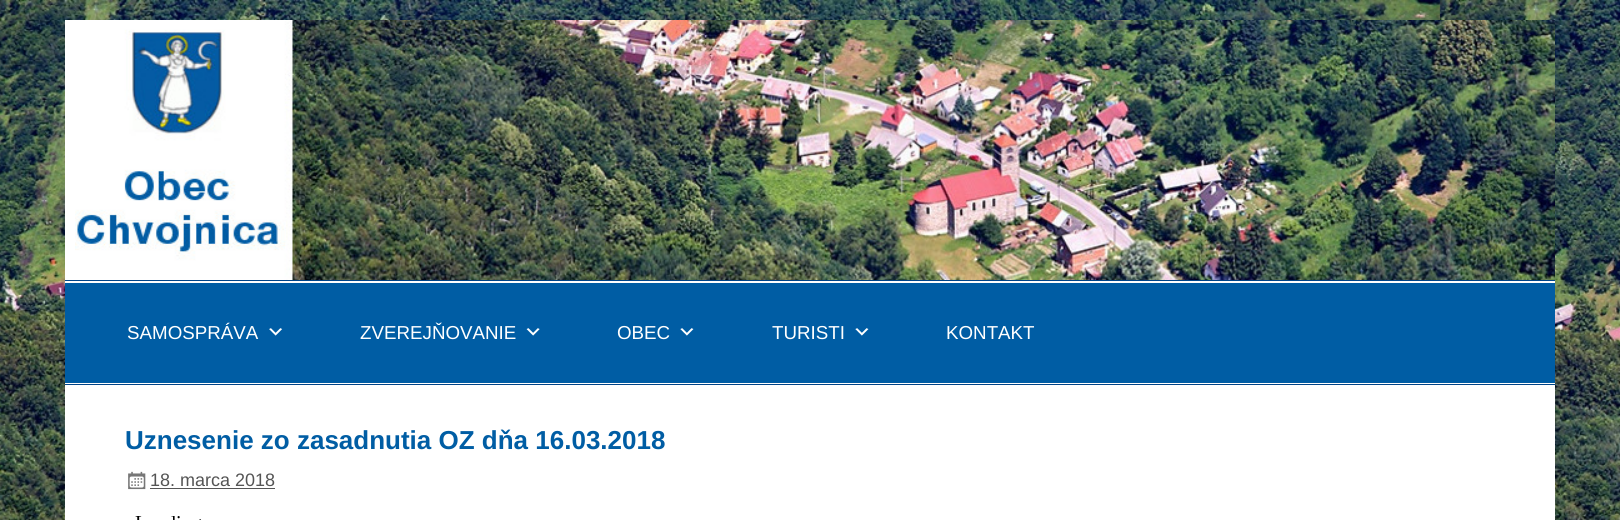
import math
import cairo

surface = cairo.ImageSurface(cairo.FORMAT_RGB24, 1620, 520)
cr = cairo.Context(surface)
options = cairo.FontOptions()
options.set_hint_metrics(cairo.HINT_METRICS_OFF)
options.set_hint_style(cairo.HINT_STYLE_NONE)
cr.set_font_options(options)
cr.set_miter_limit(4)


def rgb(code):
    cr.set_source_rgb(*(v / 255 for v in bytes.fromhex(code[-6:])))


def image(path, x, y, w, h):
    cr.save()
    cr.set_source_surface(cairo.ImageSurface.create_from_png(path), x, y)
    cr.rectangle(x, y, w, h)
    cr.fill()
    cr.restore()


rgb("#ffffff")
cr.paint()
image("img/1.png", 0, 0, 1620, 520)
rgb("#ffffff")
cr.rectangle(65, 20, 1490, 500)
cr.fill()
image("img/2.png", 75, 20, 1480, 260)
for x, y, w, h, color in [
    (65, 280, 1490, 1, "#004488"),
    (65, 384, 1490, 1, "#004488"),
    (65, 283, 1490, 100, "#005da4"),
]:
    rgb(color)
    cr.rectangle(x, y, w, h)
    cr.fill()
image("img/3.png", 269, 328, 14, 8)
image("img/4.png", 526, 328, 14, 8)
image("img/5.png", 680, 328, 14, 8)
image("img/5.png", 855, 328, 14, 8)
image("img/6.png", 128, 471, 18, 19)
rgb("#555555")
cr.rectangle(150, 488, 125, 1)
cr.fill()
image("img/7.png", 135, 516, 66, 4)
cr.select_font_face("Liberation Sans")
cr.set_font_size(18.75)
rgb("#ffffff")
for x, y, s in [
    (127, 339, "SAMOSPRÁVA"),
    (360, 339, "ZVEREJŇOVANIE"),
    (617, 339, "OBEC"),
    (772, 339, "TURISTI"),
    (946, 339, "KONTAKT"),
]:
    cr.move_to(x, y)
    cr.show_text(s)
cr.select_font_face("Liberation Sans", cairo.FONT_SLANT_NORMAL, cairo.FONT_WEIGHT_BOLD)
cr.set_font_size(26)
rgb("#005da4")
cr.move_to(125, 449)
cr.show_text("Uznesenie zo zasadnutia OZ dňa 16.03.2018")
cr.select_font_face("Liberation Sans")
cr.set_font_size(18)
rgb("#555555")
cr.move_to(150, 486)
cr.show_text("18. marca 2018")
surface.write_to_png("page.png")
